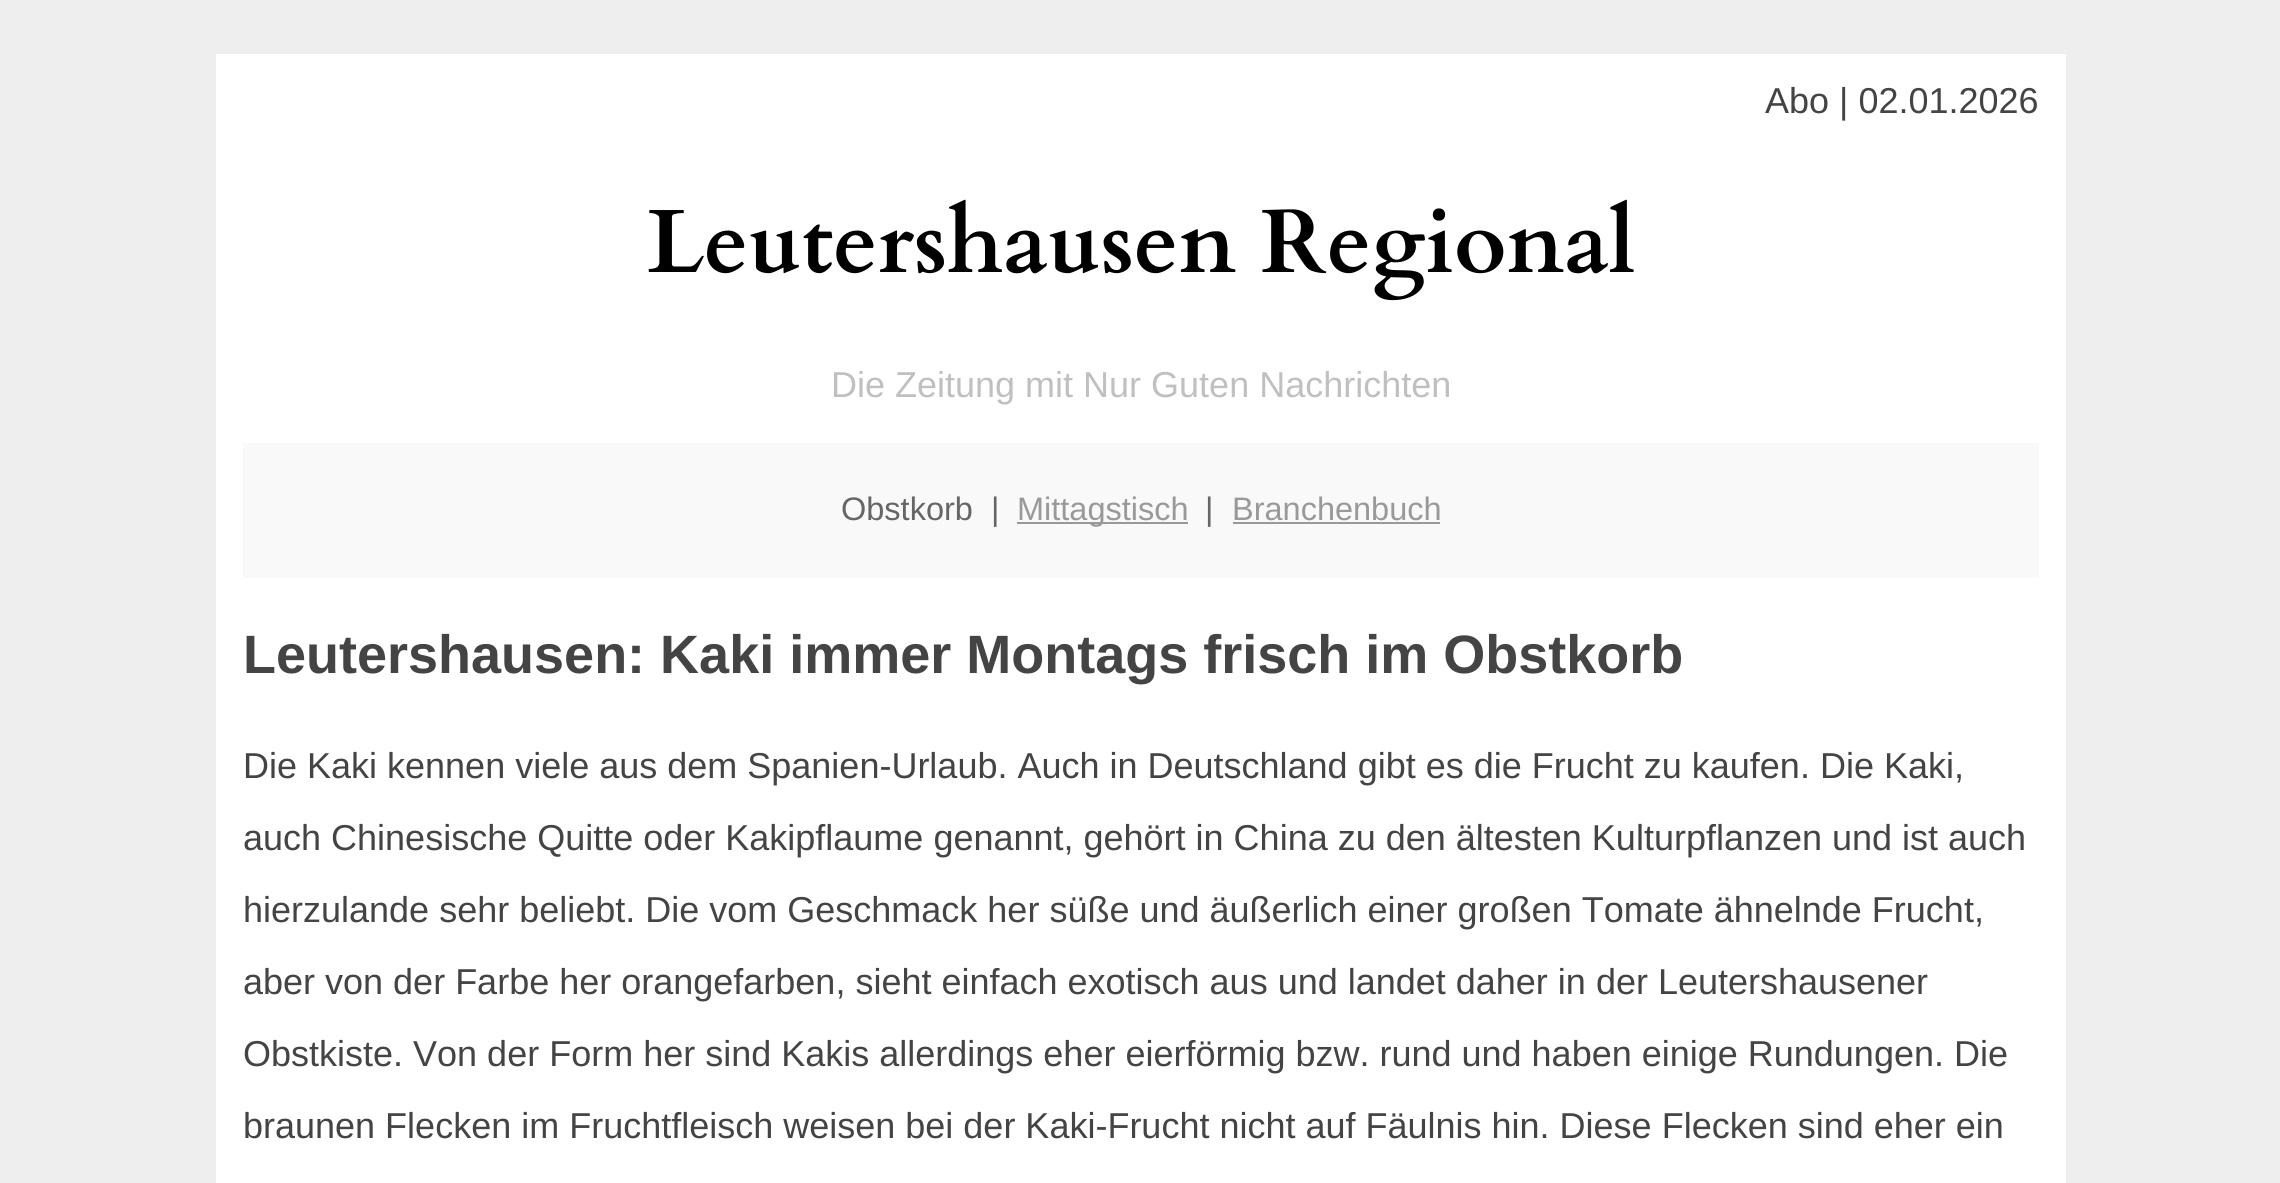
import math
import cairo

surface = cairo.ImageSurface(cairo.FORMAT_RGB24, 2280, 1183)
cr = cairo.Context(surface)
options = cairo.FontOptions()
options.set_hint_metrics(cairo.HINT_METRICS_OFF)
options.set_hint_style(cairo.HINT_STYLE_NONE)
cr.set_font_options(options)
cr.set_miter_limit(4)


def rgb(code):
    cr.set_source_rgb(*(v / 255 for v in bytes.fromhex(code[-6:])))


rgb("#eeeeee")
cr.paint()
for x, y, w, h, color in [
    (216, 54, 1850, 1129, "#ffffff"),
    (243, 443, 1796, 135, "#f9f9f9"),
    (1017, 522, 171, 2, "#999999"),
    (1233, 522, 207, 2, "#999999"),
]:
    rgb(color)
    cr.rectangle(x, y, w, h)
    cr.fill()
cr.select_font_face("Liberation Sans")
cr.set_font_size(36)
rgb("#444444")
cr.move_to(1765, 113)
cr.show_text("Abo | 02.01.2026")
cr.select_font_face("Cardo", cairo.FONT_SLANT_NORMAL, cairo.FONT_WEIGHT_BOLD)
cr.set_font_size(90)
rgb("#000000")
cr.move_to(647, 272)
cr.show_text("Leutershausen Regional")
cr.select_font_face("Liberation Sans")
cr.set_font_size(36)
rgb("#c0c0c0")
cr.move_to(831, 397)
cr.show_text("Die Zeitung mit Nur Guten Nachrichten")
cr.set_font_size(32.5)
rgb("#666666")
cr.move_to(841, 520)
cr.show_text("Obstkorb  |")
rgb("#999999")
cr.move_to(1017, 520)
cr.show_text("Mittagstisch")
rgb("#666666")
cr.move_to(1205, 520)
cr.show_text("|")
rgb("#999999")
cr.move_to(1232, 520)
cr.show_text("Branchenbuch")
cr.select_font_face("Liberation Sans", cairo.FONT_SLANT_NORMAL, cairo.FONT_WEIGHT_BOLD)
cr.set_font_size(54)
rgb("#444444")
cr.move_to(243, 673)
cr.show_text("Leutershausen: Kaki immer Montags frisch im Obstkorb")
cr.select_font_face("Liberation Sans")
cr.set_font_size(36)
for x, y, s in [
    (243, 778, "Die Kaki kennen viele aus dem Spanien-Urlaub. Auch in Deutschland gibt es die Frucht zu kaufen. Die Kaki,"),
    (243, 850, "auch Chinesische Quitte oder Kakipflaume genannt, gehört in China zu den ältesten Kulturpflanzen und ist auch"),
    (243, 922, "hierzulande sehr beliebt. Die vom Geschmack her süße und äußerlich einer großen Tomate ähnelnde Frucht,"),
    (243, 994, "aber von der Farbe her orangefarben, sieht einfach exotisch aus und landet daher in der Leutershausener"),
    (243, 1066, "Obstkiste. Von der Form her sind Kakis allerdings eher eierförmig bzw. rund und haben einige Rundungen. Die"),
    (243, 1138, "braunen Flecken im Fruchtfleisch weisen bei der Kaki-Frucht nicht auf Fäulnis hin. Diese Flecken sind eher ein"),
]:
    cr.move_to(x, y)
    cr.show_text(s)
surface.write_to_png("page.png")
